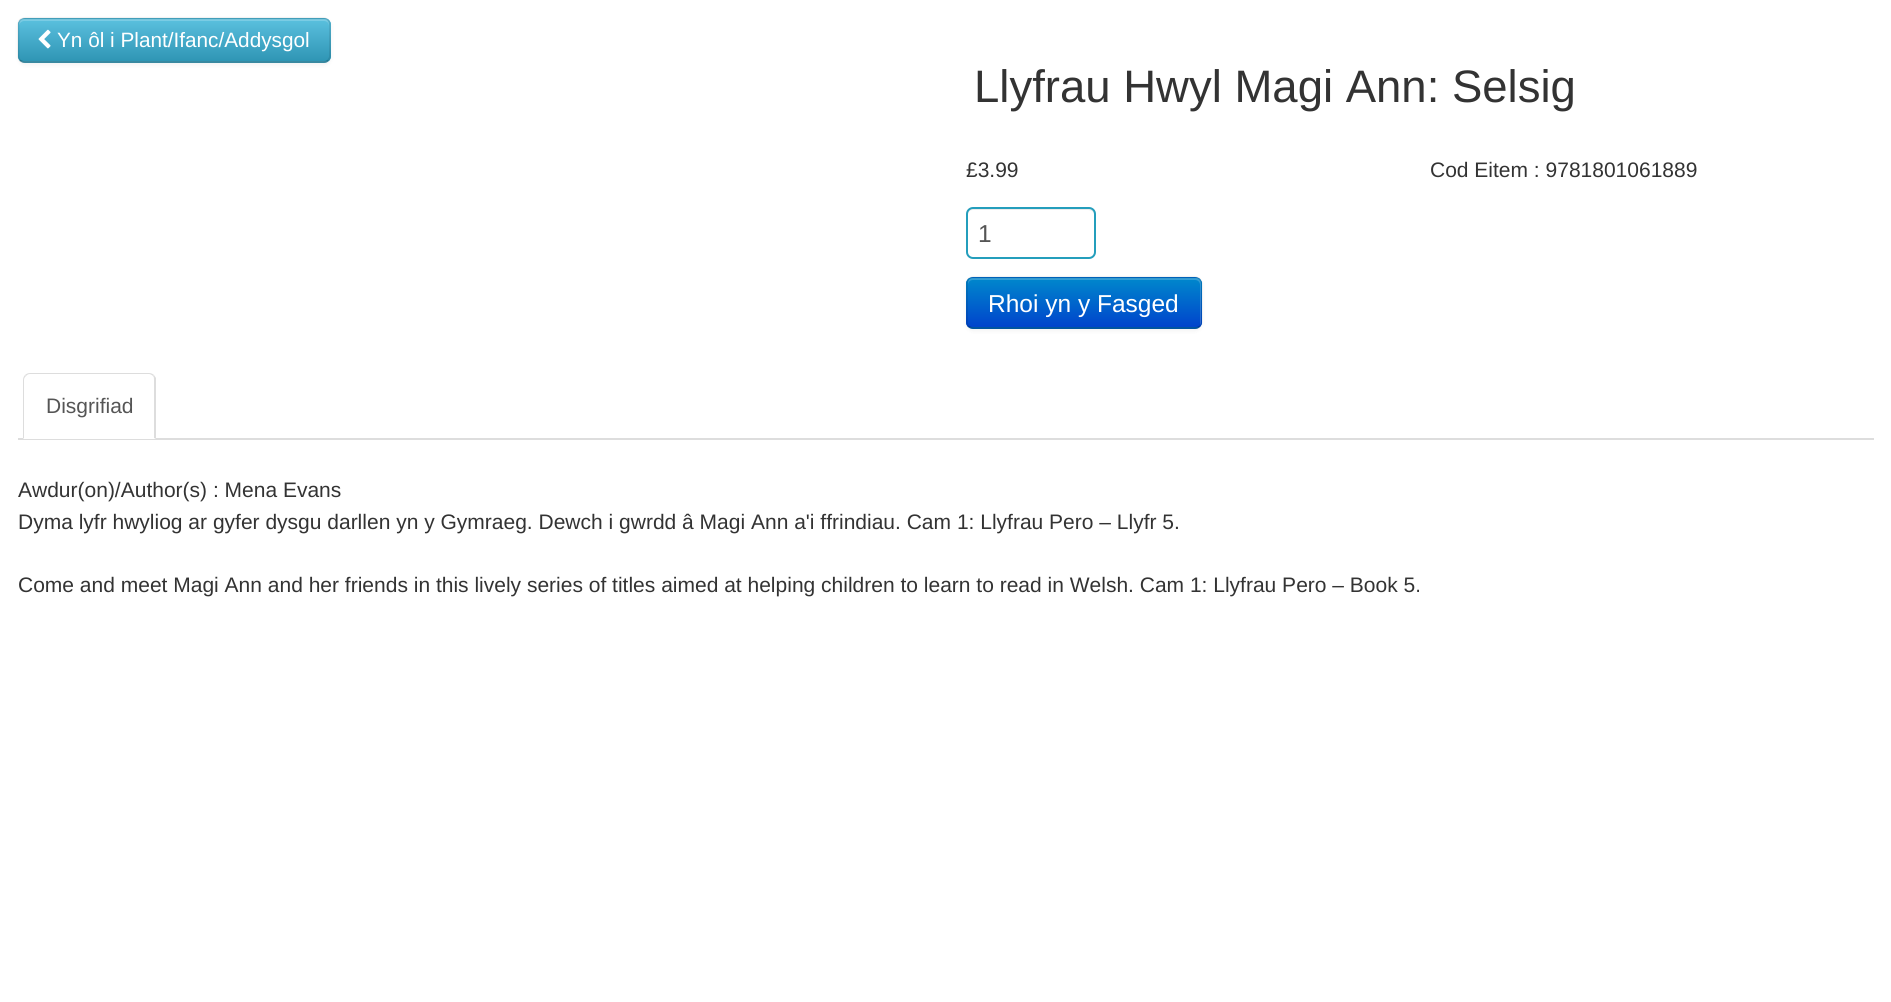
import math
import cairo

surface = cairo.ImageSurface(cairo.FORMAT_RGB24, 1891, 1002)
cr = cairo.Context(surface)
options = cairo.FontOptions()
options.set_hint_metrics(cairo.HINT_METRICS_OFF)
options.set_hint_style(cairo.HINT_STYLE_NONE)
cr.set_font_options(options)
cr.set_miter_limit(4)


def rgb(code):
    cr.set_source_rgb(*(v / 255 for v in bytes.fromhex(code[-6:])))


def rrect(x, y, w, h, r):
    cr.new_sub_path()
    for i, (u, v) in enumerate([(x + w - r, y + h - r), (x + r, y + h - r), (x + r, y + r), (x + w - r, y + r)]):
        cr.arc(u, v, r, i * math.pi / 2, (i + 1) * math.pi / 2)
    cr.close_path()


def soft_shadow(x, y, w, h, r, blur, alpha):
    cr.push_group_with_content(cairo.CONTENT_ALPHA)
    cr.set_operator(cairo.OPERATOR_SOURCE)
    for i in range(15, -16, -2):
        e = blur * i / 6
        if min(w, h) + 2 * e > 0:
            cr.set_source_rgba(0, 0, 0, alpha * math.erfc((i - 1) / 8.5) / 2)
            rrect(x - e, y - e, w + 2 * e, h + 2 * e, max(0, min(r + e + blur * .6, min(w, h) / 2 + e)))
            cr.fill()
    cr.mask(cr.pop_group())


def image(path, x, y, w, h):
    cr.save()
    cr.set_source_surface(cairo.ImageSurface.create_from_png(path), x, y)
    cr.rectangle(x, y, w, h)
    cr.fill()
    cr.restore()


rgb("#ffffff")
cr.paint()
rgb("#000000")
soft_shadow(18, 19, 313, 46, 7, 2, 0.05)
rgb("#49afcd")
rrect(18, 18, 313, 45, 7)
cr.fill()
cr.save()
rrect(18, 18, 313, 45, 7)
cr.clip()
gradient = cairo.LinearGradient(174, 19, 174, 61)
gradient.add_color_stop_rgba(0, 0.357, 0.753, 0.871, 1)
gradient.add_color_stop_rgba(1, 0.184, 0.588, 0.706, 1)
cr.set_source(gradient)
cr.rectangle(18, 19, 313, 42)
cr.fill()
cr.restore()
cr.set_source_rgba(1, 1, 1, 0.2)
cr.new_path()
cr.move_to(24, 21)
cr.line_to(324, 21)
cr.curve_to(327, 21, 329, 23, 329, 26)
cr.line_to(329, 24)
cr.curve_to(329, 21, 327, 19, 324, 19)
cr.line_to(24, 19)
cr.curve_to(21, 19, 19, 21, 19, 24)
cr.line_to(19, 26)
cr.curve_to(19, 23, 22, 21, 24, 21)
cr.close_path()
cr.fill()
cr.new_path()
cr.move_to(328, 60.5)
cr.curve_to(327, 61.5, 325.5, 62, 324, 62)
cr.line_to(24.5, 62)
cr.curve_to(23, 62, 21.5, 61.5, 20, 60.5)
cr.set_source_rgba(0, 0, 0, 0.25)
cr.set_line_width(1.8)
cr.stroke()
cr.new_path()
cr.move_to(20, 60.5)
cr.curve_to(19, 59, 18.5, 57.5, 18.5, 56)
cr.line_to(18.5, 24.5)
cr.curve_to(18.5, 23, 19, 21.5, 20, 20)
cr.curve_to(21.5, 19, 23, 18.5, 24.5, 18.5)
cr.line_to(324, 18.5)
cr.curve_to(325.5, 18.5, 327, 19, 328, 20)
cr.curve_to(329, 21.5, 330, 23, 330, 24.5)
cr.line_to(330, 56)
cr.curve_to(330, 57.5, 329, 59, 328, 60.5)
cr.set_source_rgba(0, 0, 0, 0.1)
cr.stroke()
image("img/1.png", 38, 29, 13, 20)
rgb("#ececec")
cr.new_path()
cr.move_to(973, 210)
cr.line_to(1088, 210)
cr.curve_to(1091, 210, 1094, 212, 1094, 215)
cr.line_to(1094, 213)
cr.curve_to(1094, 210, 1092, 208, 1089, 208)
cr.line_to(973, 208)
cr.curve_to(970, 208, 968, 210, 968, 213)
cr.line_to(968, 215)
cr.curve_to(968, 212, 970, 210, 973, 210)
cr.close_path()
cr.fill()
rrect(967, 208, 128, 50, 6)
rgb("#249ebc")
cr.set_line_width(2)
cr.stroke()
rgb("#000000")
soft_shadow(966, 278, 236, 53, 7, 2, 0.05)
rgb("#006dcc")
rrect(966, 277, 236, 52, 7)
cr.fill()
cr.save()
rrect(966, 277, 236, 52, 7)
cr.clip()
gradient = cairo.LinearGradient(1084, 278, 1084, 327)
gradient.add_color_stop_rgba(0, 0, 0.533, 0.8, 1)
gradient.add_color_stop_rgba(1, 0, 0.267, 0.8, 1)
cr.set_source(gradient)
cr.rectangle(966, 278, 236, 49)
cr.fill()
cr.restore()
cr.set_source_rgba(1, 1, 1, 0.2)
cr.new_path()
cr.move_to(973, 280)
cr.line_to(1195, 280)
cr.curve_to(1198, 280, 1200, 282, 1200, 285)
cr.line_to(1200, 325)
cr.curve_to(1201, 324, 1201, 323, 1201, 322)
cr.line_to(1201, 283)
cr.curve_to(1201, 280, 1199, 278, 1196, 278)
cr.line_to(973, 278)
cr.curve_to(970, 278, 968, 280, 968, 283)
cr.line_to(968, 285)
cr.curve_to(968, 282, 970, 280, 973, 280)
cr.close_path()
cr.fill()
cr.new_path()
cr.move_to(1199.5, 326.5)
cr.curve_to(1198.5, 327.5, 1197, 328, 1195, 328)
cr.line_to(973, 328)
cr.curve_to(971.5, 328, 970, 327.5, 968.5, 326.5)
cr.set_source_rgba(0, 0, 0, 0.25)
cr.set_line_width(1.8)
cr.stroke()
cr.new_path()
cr.move_to(968.5, 326.5)
cr.curve_to(967.5, 325, 967, 323.5, 967, 322)
cr.line_to(967, 283.5)
cr.curve_to(967, 282, 967.5, 280.5, 968.5, 279)
cr.curve_to(970, 278, 971.5, 277.5, 973, 277.5)
cr.line_to(1195, 277.5)
cr.curve_to(1197, 277.5, 1198.5, 278, 1199.5, 279)
cr.curve_to(1200.5, 280.5, 1201.5, 282, 1201.5, 283.5)
cr.line_to(1201.5, 322)
cr.curve_to(1201.5, 323.5, 1200.5, 325, 1199.5, 326.5)
cr.set_source_rgba(0, 0, 0, 0.1)
cr.stroke()
rgb("#dddddd")
cr.rectangle(18, 438, 1856, 2)
cr.fill()
rgb("#ffffff")
cr.new_path()
cr.move_to(30, 373)
cr.line_to(149, 373)
cr.curve_to(153, 373, 156, 376, 156, 380)
cr.line_to(156, 439)
cr.line_to(23, 439)
cr.line_to(23, 380)
cr.curve_to(23, 376, 26, 373, 30, 373)
cr.close_path()
cr.fill()
rgb("#dddddd")
cr.new_path()
cr.move_to(30, 373)
cr.curve_to(28, 373, 26, 374, 25, 375)
cr.line_to(26, 376)
cr.curve_to(27, 375, 28, 374, 30, 374)
cr.line_to(149, 374)
cr.curve_to(150, 374, 152, 375, 153, 376)
cr.line_to(154, 375)
cr.curve_to(153, 374, 151, 373, 149, 373)
cr.close_path()
cr.fill()
cr.new_path()
cr.move_to(154, 375)
cr.line_to(156, 378)
cr.line_to(156, 439)
cr.line_to(154, 438)
cr.line_to(154, 380)
cr.curve_to(154, 378, 154, 377, 153, 376)
cr.close_path()
cr.fill()
cr.new_path()
cr.move_to(25, 375)
cr.curve_to(24, 376, 23, 378, 23, 380)
cr.line_to(23, 439)
cr.line_to(24, 438)
cr.line_to(24, 380)
cr.curve_to(24, 378, 25, 377, 26, 376)
cr.close_path()
cr.fill()
cr.select_font_face("Liberation Sans")
cr.set_font_size(20.75)
rgb("#ffffff")
cr.move_to(57, 47)
cr.show_text("Yn ôl i Plant/Ifanc/Addysgol")
cr.set_font_size(45.5)
rgb("#333333")
cr.move_to(974, 102)
cr.show_text("Llyfrau Hwyl Magi Ann: Selsig")
cr.set_font_size(21)
cr.move_to(966, 177)
cr.show_text("£3.99")
cr.move_to(1430, 177)
cr.show_text("Cod Eitem : 9781801061889")
cr.set_font_size(24.5)
rgb("#555555")
cr.move_to(978, 242)
cr.show_text("1")
rgb("#ffffff")
cr.move_to(988, 312)
cr.show_text("Rhoi yn y Fasged")
cr.set_font_size(21)
rgb("#555555")
cr.move_to(46, 413)
cr.show_text("Disgrifiad")
rgb("#333333")
for x, y, s in [
    (18, 497, "Awdur(on)/Author(s) : Mena Evans"),
    (18, 529, "Dyma lyfr hwyliog ar gyfer dysgu darllen yn y Gymraeg. Dewch i gwrdd â Magi Ann a'i ffrindiau. Cam 1: Llyfrau Pero – Llyfr 5."),
    (18, 592, "Come and meet Magi Ann and her friends in this lively series of titles aimed at helping children to learn to read in Welsh. Cam 1: Llyfrau Pero – Book 5."),
]:
    cr.move_to(x, y)
    cr.show_text(s)
surface.write_to_png("page.png")
